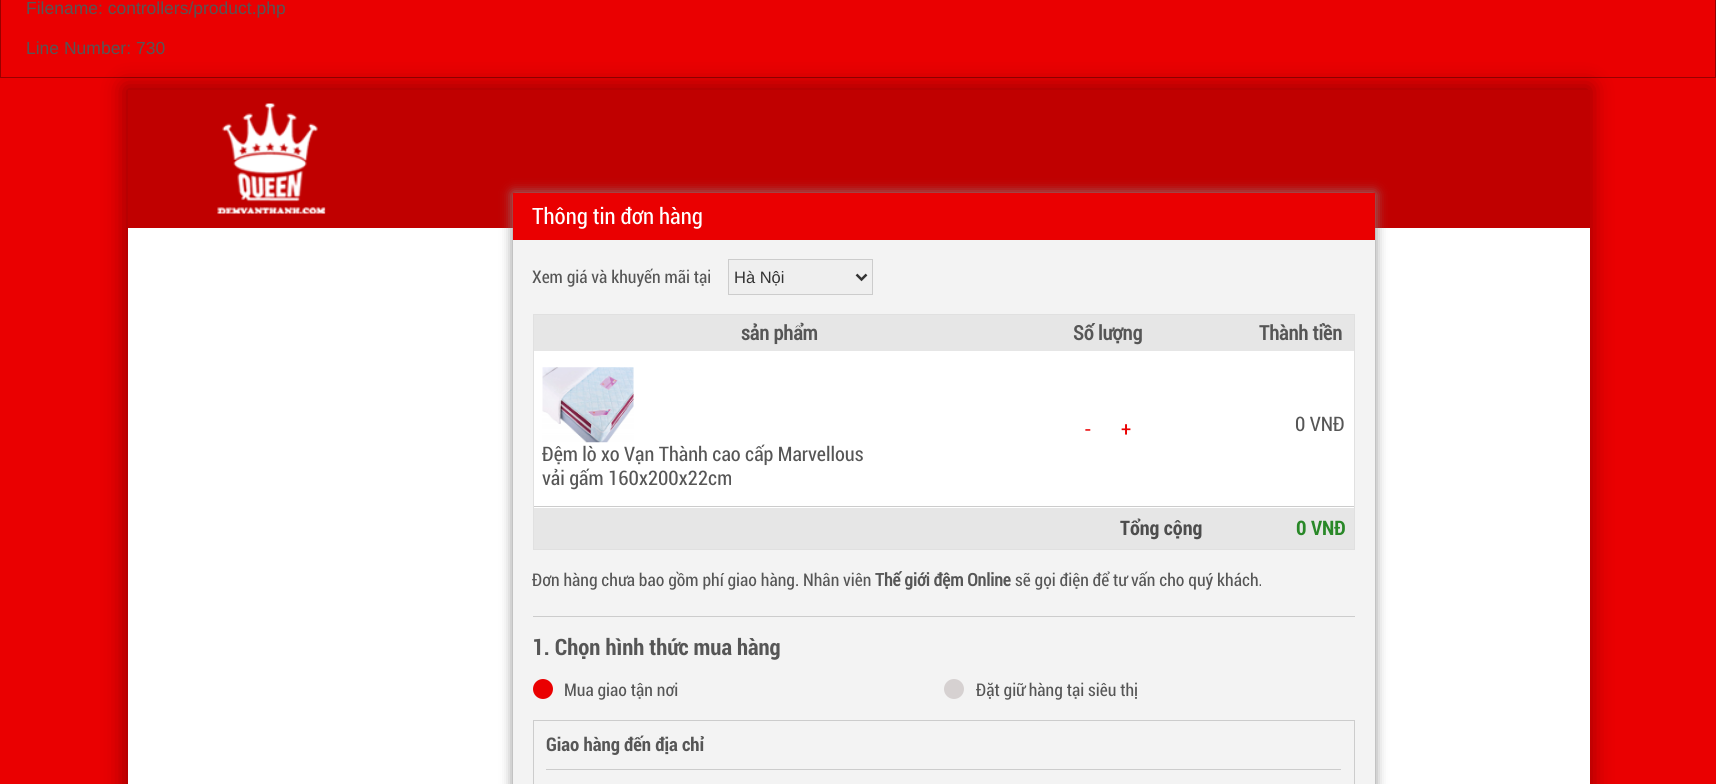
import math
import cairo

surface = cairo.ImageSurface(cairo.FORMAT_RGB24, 1716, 784)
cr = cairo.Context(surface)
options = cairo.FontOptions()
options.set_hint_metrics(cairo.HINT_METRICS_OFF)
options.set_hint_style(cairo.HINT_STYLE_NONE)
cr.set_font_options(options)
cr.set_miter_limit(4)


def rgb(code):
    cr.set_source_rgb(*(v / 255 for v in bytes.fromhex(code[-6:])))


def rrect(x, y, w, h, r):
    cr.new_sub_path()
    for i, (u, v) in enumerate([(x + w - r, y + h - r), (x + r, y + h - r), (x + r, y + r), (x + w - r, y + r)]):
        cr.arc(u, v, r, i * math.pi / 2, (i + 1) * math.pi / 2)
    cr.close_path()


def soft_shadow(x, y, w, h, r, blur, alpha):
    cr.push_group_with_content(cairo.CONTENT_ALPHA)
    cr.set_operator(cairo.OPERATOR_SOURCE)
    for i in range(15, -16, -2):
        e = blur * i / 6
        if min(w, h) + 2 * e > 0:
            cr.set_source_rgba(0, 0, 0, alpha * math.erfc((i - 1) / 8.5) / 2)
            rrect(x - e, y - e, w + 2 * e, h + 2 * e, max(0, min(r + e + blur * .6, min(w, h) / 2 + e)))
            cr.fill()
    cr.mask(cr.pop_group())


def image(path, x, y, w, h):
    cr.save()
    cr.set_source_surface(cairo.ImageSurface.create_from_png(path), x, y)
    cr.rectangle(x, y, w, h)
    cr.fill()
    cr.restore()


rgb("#ea0001")
cr.paint()
cr.rectangle(0.5, -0.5, 1715, 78)
rgb("#990000")
cr.set_line_width(1)
cr.stroke()
rgb("#000000")
soft_shadow(124, 86, 1467, 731, 0, 11, 0.35)
rgb("#ffffff")
cr.rectangle(128, 228, 1462, 556)
cr.fill()
rgb("#c00000")
cr.rectangle(128, 90, 1462, 138)
cr.fill()
image("img/1.png", 217, 103, 109, 111)
rgb("#868686")
soft_shadow(513, 193, 862, 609, 0, 6, 1)
rgb("#f3f3f3")
cr.rectangle(513, 240, 862, 544)
cr.fill()
rgb("#ea0001")
cr.rectangle(513, 193, 862, 47)
cr.fill()
rgb("#efefef")
cr.rectangle(728.5, 259.5, 144, 35)
cr.fill_preserve()
rgb("#cccccc")
cr.stroke()
cr.new_path()
cr.move_to(856.5, 274.5)
cr.line_to(861.5, 279.5)
cr.line_to(866.5, 274.5)
rgb("#333333")
cr.set_line_width(2.5)
cr.stroke()
cr.rectangle(533.5, 314.5, 821, 235)
rgb("#e0e0e0")
cr.set_line_width(1)
cr.stroke()
for x, y, w, h, color in [
    (534, 315, 820, 36, "#e6e6e6"),
    (534, 351, 820, 157, "#ffffff"),
    (534, 506, 820, 1, "#cccccc"),
]:
    rgb(color)
    cr.rectangle(x, y, w, h)
    cr.fill()
image("img/2.png", 542, 367, 92, 76)
rgb("#e6e6e6")
cr.rectangle(534, 508, 820, 41)
cr.fill()
rgb("#cccccc")
cr.rectangle(533, 616, 822, 1)
cr.fill()
rgb("#ea0001")
cr.arc(543, 689, 10, 0, 2 * math.pi)
cr.fill()
rgb("#d6d1d1")
cr.arc(954, 689, 10, 0, 2 * math.pi)
cr.fill()
cr.rectangle(533.5, 720.5, 821, 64)
rgb("#cccccc")
cr.stroke()
cr.rectangle(546, 769, 795, 1)
cr.fill()
cr.select_font_face("Liberation Sans")
cr.set_font_size(17.5)
rgb("#565656")
cr.move_to(26, 14)
cr.show_text("Filename: controllers/product.php")
cr.move_to(26, 54)
cr.show_text("Line Number: 730")
cr.select_font_face("Roboto")
cr.set_font_size(22.5)
rgb("#ffffff")
cr.move_to(532, 224)
cr.show_text("Thông tin đơn hàng")
cr.set_font_size(17.5)
rgb("#565656")
cr.move_to(532, 283)
cr.show_text("Xem giá và khuyến mãi tại")
cr.select_font_face("Liberation Sans")
cr.set_font_size(16.5)
rgb("#333333")
cr.move_to(734, 283)
cr.show_text("Hà Nội")
cr.select_font_face("Roboto", cairo.FONT_SLANT_NORMAL, cairo.FONT_WEIGHT_BOLD)
cr.set_font_size(20)
rgb("#565656")
for x, y, s in [
    (741, 340, "sản phẩm"),
    (1073, 340, "Số lượng"),
    (1259, 340, "Thành tiền"),
]:
    cr.move_to(x, y)
    cr.show_text(s)
cr.select_font_face("Roboto")
rgb("#ea0001")
cr.move_to(1084, 436)
cr.show_text("-")
cr.move_to(1121, 436)
cr.show_text("+")
rgb("#565656")
for x, y, s in [
    (1295, 431, "0 VNĐ"),
    (542, 461, "Đệm lò xo Vạn Thành cao cấp Marvellous"),
    (542, 485, "vải gấm 160x200x22cm"),
]:
    cr.move_to(x, y)
    cr.show_text(s)
cr.select_font_face("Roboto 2", cairo.FONT_SLANT_NORMAL, cairo.FONT_WEIGHT_BOLD)
rgb("#4d4d4d")
cr.move_to(1120, 535)
cr.show_text("Tổng cộng")
rgb("#298828")
cr.move_to(1296, 535)
cr.show_text("0 VNĐ")
cr.select_font_face("Roboto")
cr.set_font_size(17.5)
rgb("#565656")
cr.move_to(532, 586)
cr.show_text("Đơn hàng chưa bao gồm phí giao hàng. Nhân viên")
cr.select_font_face("Roboto", cairo.FONT_SLANT_NORMAL, cairo.FONT_WEIGHT_BOLD)
cr.move_to(875, 586)
cr.show_text("Thế giới đệm Online")
cr.select_font_face("Roboto")
cr.move_to(1015, 586)
cr.show_text("sẽ gọi điện để tư vấn cho quý khách.")
cr.select_font_face("Roboto 2", cairo.FONT_SLANT_NORMAL, cairo.FONT_WEIGHT_BOLD)
cr.set_font_size(22.5)
cr.move_to(532, 655)
cr.show_text("1. Chọn hình thức mua hàng")
cr.select_font_face("Roboto")
cr.set_font_size(17.5)
cr.move_to(564, 696)
cr.show_text("Mua giao tận nơi")
cr.move_to(976, 696)
cr.show_text("Đặt giữ hàng tại siêu thị")
cr.select_font_face("Roboto 2", cairo.FONT_SLANT_NORMAL, cairo.FONT_WEIGHT_BOLD)
cr.set_font_size(18.75)
cr.move_to(546, 751)
cr.show_text("Giao hàng đến địa chỉ")
surface.write_to_png("page.png")
